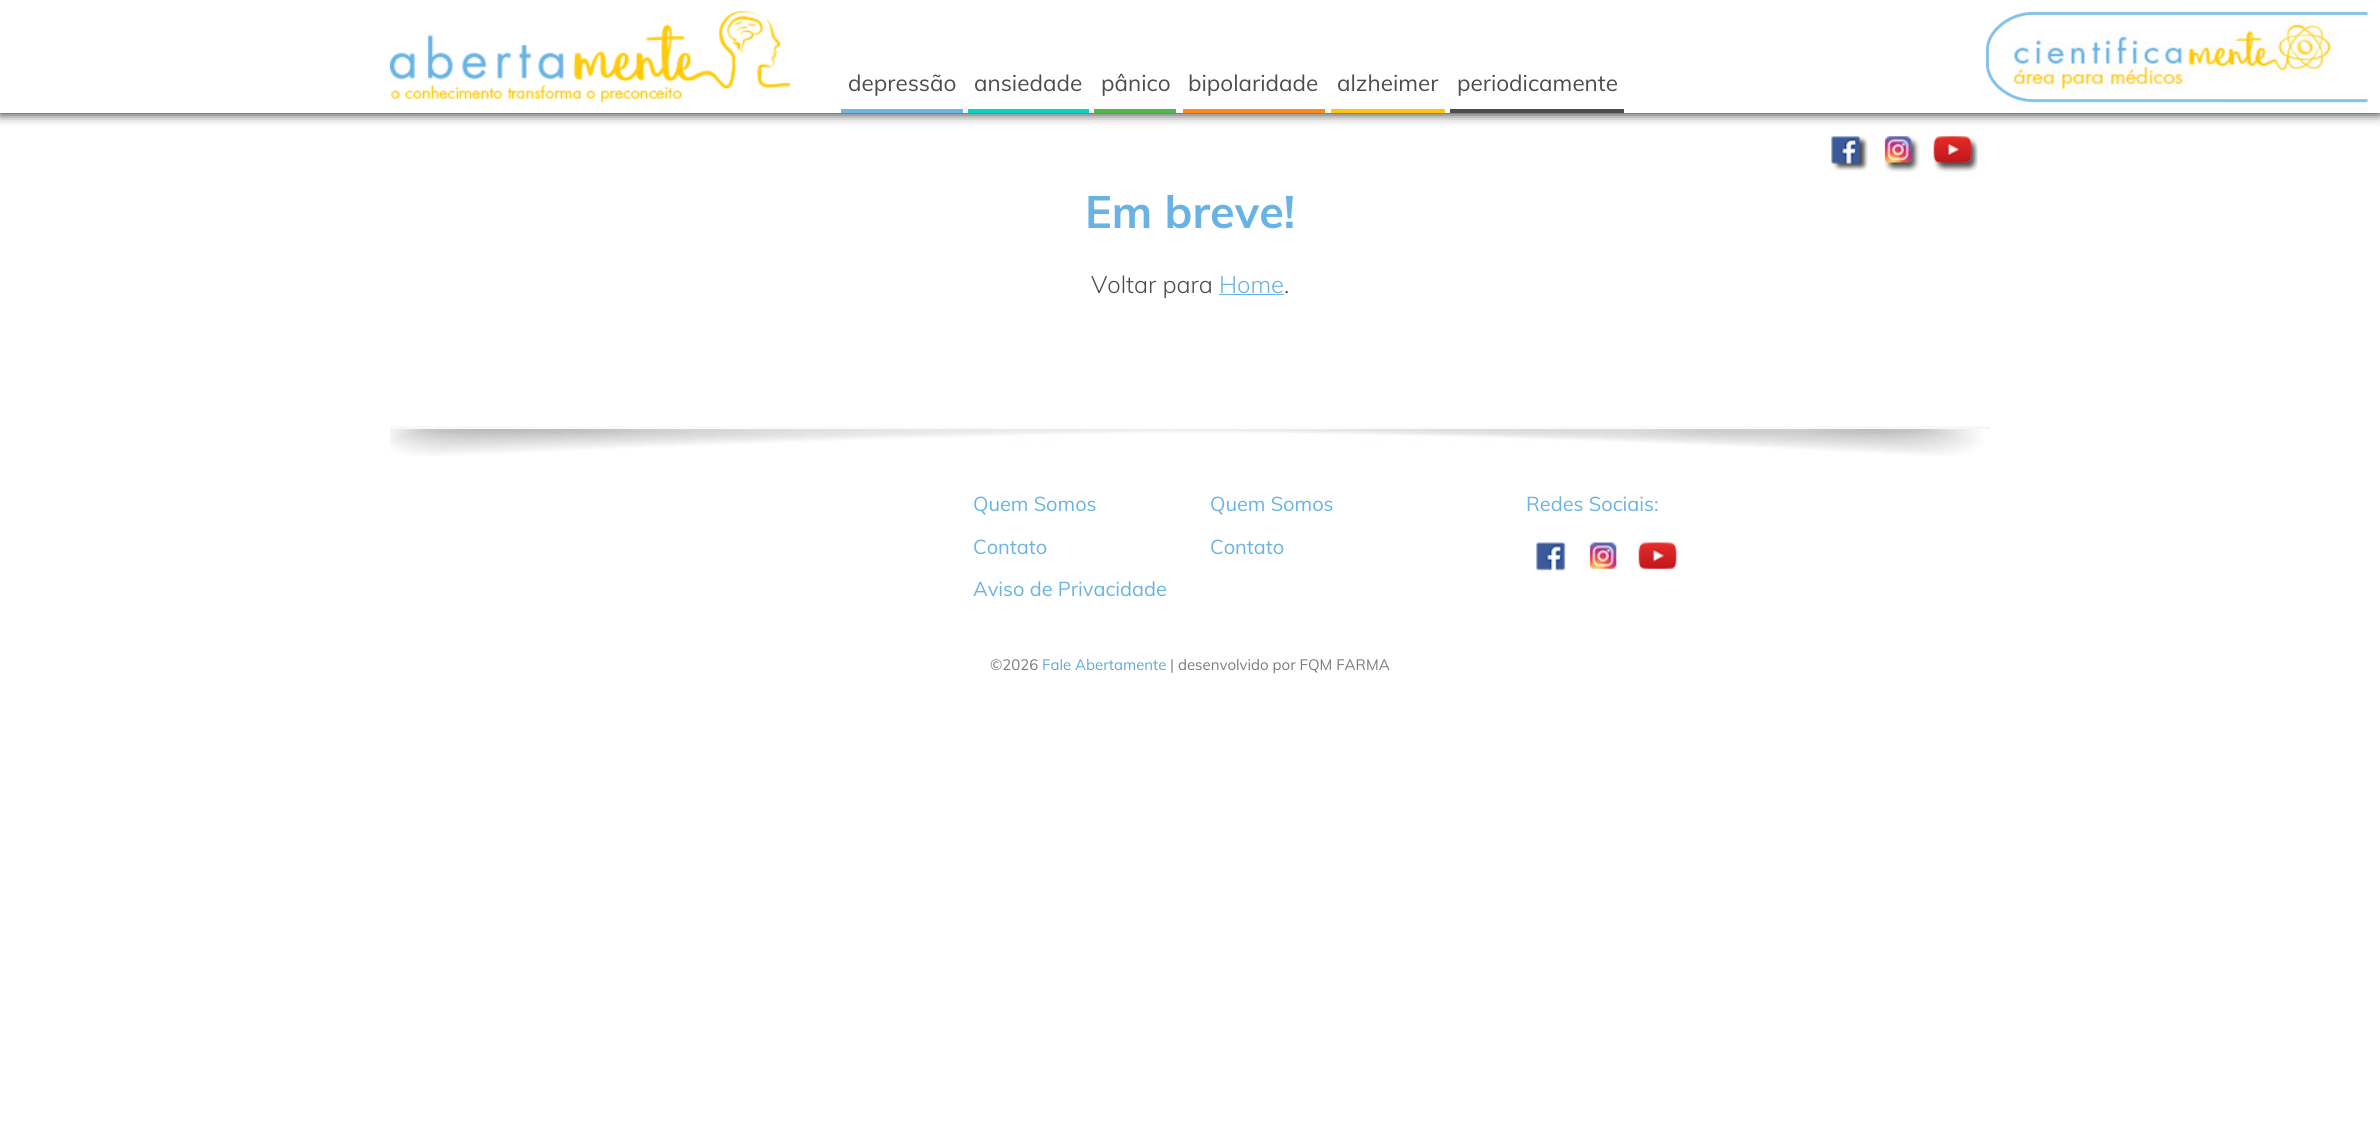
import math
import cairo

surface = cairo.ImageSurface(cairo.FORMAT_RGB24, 2380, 1140)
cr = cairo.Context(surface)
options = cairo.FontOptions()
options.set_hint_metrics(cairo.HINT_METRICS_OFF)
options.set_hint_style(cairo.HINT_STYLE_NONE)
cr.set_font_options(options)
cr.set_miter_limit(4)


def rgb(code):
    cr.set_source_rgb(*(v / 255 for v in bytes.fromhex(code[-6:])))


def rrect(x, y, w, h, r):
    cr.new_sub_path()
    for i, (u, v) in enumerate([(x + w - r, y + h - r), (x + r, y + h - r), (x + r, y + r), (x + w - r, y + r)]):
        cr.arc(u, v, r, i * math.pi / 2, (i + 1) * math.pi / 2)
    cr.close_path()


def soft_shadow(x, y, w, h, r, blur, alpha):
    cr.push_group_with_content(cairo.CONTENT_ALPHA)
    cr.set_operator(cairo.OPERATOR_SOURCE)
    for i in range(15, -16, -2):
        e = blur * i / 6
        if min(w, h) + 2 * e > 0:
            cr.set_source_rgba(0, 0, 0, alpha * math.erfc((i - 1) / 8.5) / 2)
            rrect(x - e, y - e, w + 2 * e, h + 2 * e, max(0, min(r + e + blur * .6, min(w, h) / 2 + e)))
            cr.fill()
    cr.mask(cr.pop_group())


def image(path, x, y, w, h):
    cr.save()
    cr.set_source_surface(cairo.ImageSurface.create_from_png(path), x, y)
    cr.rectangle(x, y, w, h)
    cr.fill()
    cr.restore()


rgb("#ffffff")
cr.paint()
rgb("#000000")
soft_shadow(0, 0, 2380, 113, 0, 6, 1)
rgb("#ffffff")
cr.rectangle(0, 0, 2380, 113)
cr.fill()
image("img/1.png", 390, 11, 400, 92)
for x, y, w, h, color in [
    (841, 109, 122, 4, "#6eb5e5"),
    (968, 109, 121, 4, "#03d6c0"),
    (1094, 109, 82, 4, "#50b848"),
    (1183, 109, 142, 4, "#f68b1f"),
    (1331, 109, 114, 4, "#ffc20e"),
    (1450, 109, 174, 4, "#4d4d4f"),
]:
    rgb(color)
    cr.rectangle(x, y, w, h)
    cr.fill()
image("img/2.png", 1831, 136, 37, 35)
image("img/3.png", 1884, 136, 36, 36)
image("img/4.png", 1933, 136, 45, 36)
image("img/5.png", 1985, 11, 383, 92)
rgb("#69b3e4")
cr.rectangle(1219, 294, 65, 1)
cr.fill()
image("img/6.png", 390, 426, 1600, 30)
image("img/7.png", 1536, 542, 30, 29)
image("img/8.png", 1589, 542, 28, 27)
image("img/9.png", 1638, 542, 39, 27)
cr.select_font_face("Muli")
cr.set_font_size(22.5)
rgb("#4d4d4f")
for x, y, s in [
    (848, 91, "depressão"),
    (974, 91, "ansiedade"),
    (1101, 91, "pânico"),
    (1188, 91, "bipolaridade"),
    (1337, 91, "alzheimer"),
    (1457, 91, "periodicamente"),
]:
    cr.move_to(x, y)
    cr.show_text(s)
cr.select_font_face("Muli", cairo.FONT_SLANT_NORMAL, cairo.FONT_WEIGHT_BOLD)
cr.set_font_size(45)
rgb("#69b3e4")
cr.move_to(1085, 228)
cr.show_text("Em breve!")
cr.select_font_face("Muli Light")
cr.set_font_size(23.75)
rgb("#4d4d4f")
cr.move_to(1091, 293)
cr.show_text("Voltar para")
rgb("#69b3e4")
cr.move_to(1219, 293)
cr.show_text("Home")
rgb("#4d4d4f")
cr.move_to(1284, 293)
cr.show_text(".")
cr.select_font_face("Muli")
cr.set_font_size(20)
rgb("#69b3e4")
for x, y, s in [
    (973, 511, "Quem Somos"),
    (1210, 511, "Quem Somos"),
    (973, 554, "Contato"),
    (1210, 554, "Contato"),
    (973, 596, "Aviso de Privacidade"),
    (1526, 511, "Redes Sociais:"),
]:
    cr.move_to(x, y)
    cr.show_text(s)
cr.set_font_size(15)
rgb("#7b7b7b")
cr.move_to(990, 670)
cr.show_text("©2026")
rgb("#61a8d6")
cr.move_to(1042, 670)
cr.show_text("Fale Abertamente")
rgb("#7b7b7b")
cr.move_to(1170, 670)
cr.show_text("| desenvolvido por FQM FARMA")
surface.write_to_png("page.png")
